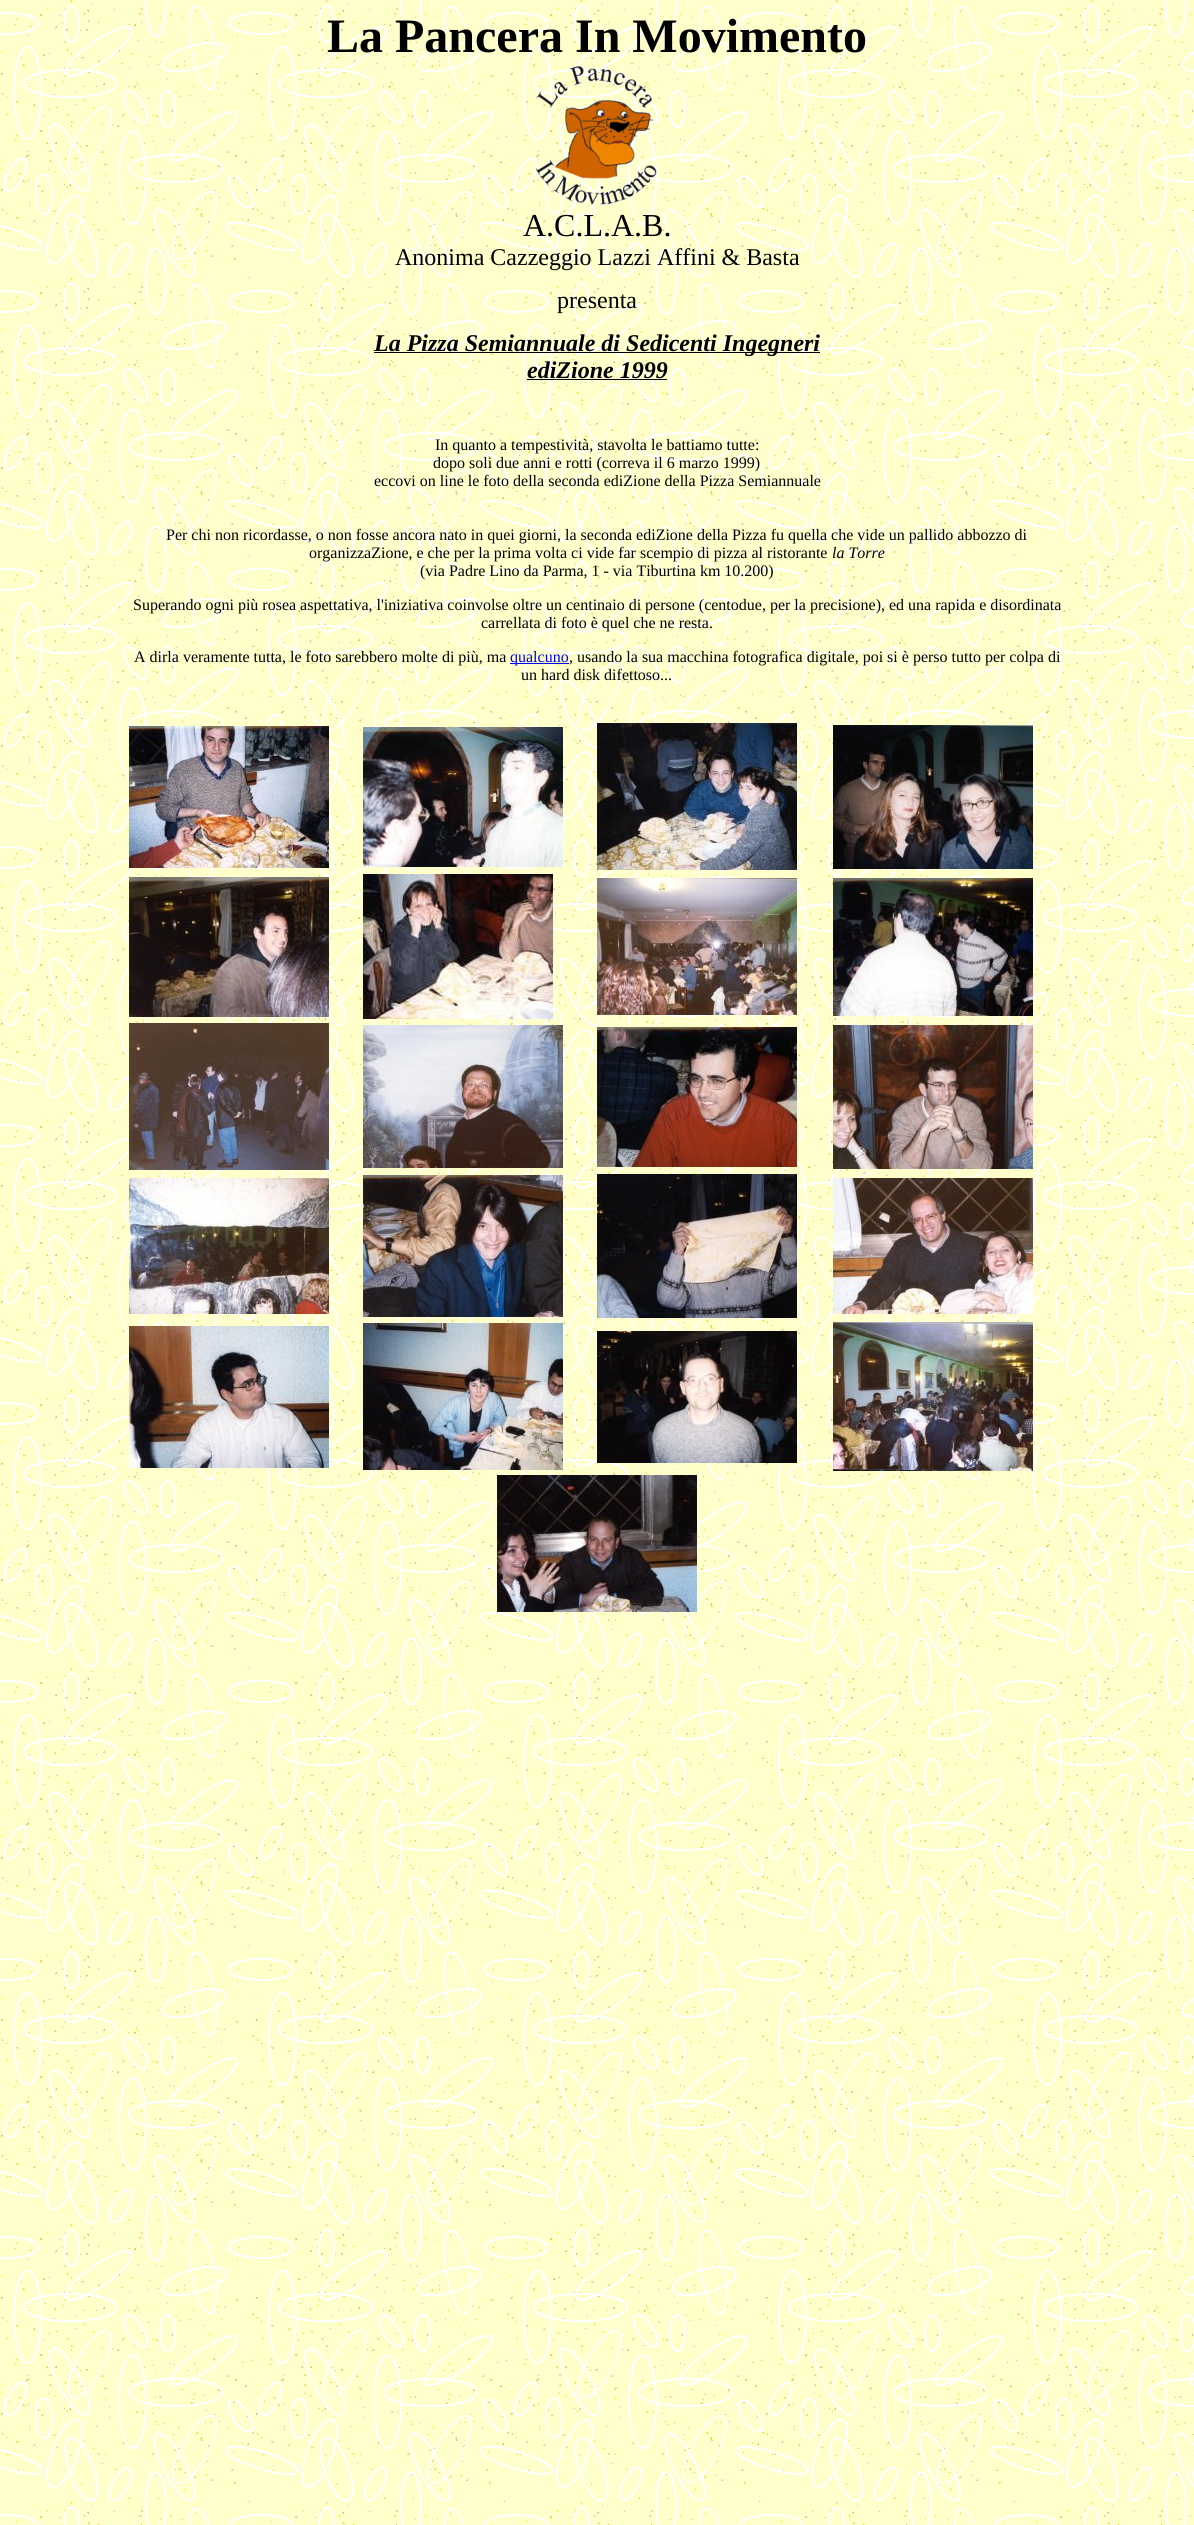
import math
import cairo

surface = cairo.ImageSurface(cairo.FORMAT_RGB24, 1194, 2525)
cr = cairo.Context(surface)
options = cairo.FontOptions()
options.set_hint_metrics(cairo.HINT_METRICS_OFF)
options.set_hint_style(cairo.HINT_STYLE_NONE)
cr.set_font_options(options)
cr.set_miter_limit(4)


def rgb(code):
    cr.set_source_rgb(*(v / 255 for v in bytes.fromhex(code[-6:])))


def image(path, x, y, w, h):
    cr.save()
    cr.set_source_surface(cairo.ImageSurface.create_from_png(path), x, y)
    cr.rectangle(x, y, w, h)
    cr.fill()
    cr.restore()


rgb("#ffffff")
cr.paint()
image("img/1.png", 0, 0, 1194, 2525)
image("img/2.png", 535, 66, 122, 139)
for x, y, w, h, color in [
    (374, 352, 446, 1, "#000000"),
    (527, 379, 140, 1, "#000000"),
    (510, 663, 59, 1, "#0000ee"),
]:
    rgb(color)
    cr.rectangle(x, y, w, h)
    cr.fill()
image("img/3.png", 129, 726, 200, 142)
image("img/4.png", 363, 727, 200, 140)
image("img/5.png", 597, 723, 200, 147)
image("img/6.png", 833, 725, 200, 144)
image("img/7.png", 129, 877, 200, 140)
image("img/8.png", 363, 874, 190, 145)
image("img/9.png", 597, 878, 200, 137)
image("img/10.png", 833, 878, 200, 138)
image("img/11.png", 129, 1023, 200, 147)
image("img/12.png", 363, 1025, 200, 143)
image("img/13.png", 597, 1027, 200, 140)
image("img/14.png", 833, 1025, 200, 144)
image("img/15.png", 129, 1178, 200, 136)
image("img/16.png", 363, 1175, 200, 142)
image("img/17.png", 597, 1174, 200, 144)
image("img/18.png", 833, 1178, 200, 136)
image("img/19.png", 129, 1326, 200, 142)
image("img/20.png", 363, 1323, 200, 147)
image("img/21.png", 597, 1331, 200, 132)
image("img/22.png", 833, 1322, 200, 149)
image("img/23.png", 497, 1475, 200, 137)
cr.select_font_face("Liberation Serif", cairo.FONT_SLANT_NORMAL, cairo.FONT_WEIGHT_BOLD)
cr.set_font_size(48)
rgb("#000000")
cr.move_to(327, 52)
cr.show_text("La Pancera In Movimento")
cr.select_font_face("Liberation Serif")
cr.set_font_size(32)
cr.move_to(523, 236)
cr.show_text("A.C.L.A.B.")
cr.set_font_size(24)
cr.move_to(395, 265)
cr.show_text("Anonima Cazzeggio Lazzi Affini & Basta")
cr.move_to(557, 308)
cr.show_text("presenta")
cr.select_font_face("Liberation Serif", cairo.FONT_SLANT_ITALIC, cairo.FONT_WEIGHT_BOLD)
cr.move_to(374, 351)
cr.show_text("La Pizza Semiannuale di Sedicenti Ingegneri")
cr.move_to(527, 378)
cr.show_text("ediZione 1999")
cr.select_font_face("Liberation Serif")
cr.set_font_size(16)
for x, y, s in [
    (435, 450, "In quanto a tempestività, stavolta le battiamo tutte:"),
    (433, 468, "dopo soli due anni e rotti (correva il 6 marzo 1999)"),
    (374, 486, "eccovi on line le foto della seconda ediZione della Pizza Semiannuale"),
    (166, 540, "Per chi non ricordasse, o non fosse ancora nato in quei giorni, la seconda ediZione della Pizza fu quella che vide un pallido abbozzo di"),
    (309, 558, "organizzaZione, e che per la prima volta ci vide far scempio di pizza al ristorante"),
]:
    cr.move_to(x, y)
    cr.show_text(s)
cr.select_font_face("Liberation Serif", cairo.FONT_SLANT_ITALIC)
cr.move_to(832, 558)
cr.show_text("la Torre")
cr.select_font_face("Liberation Serif")
for x, y, s in [
    (420, 576, "(via Padre Lino da Parma, 1 - via Tiburtina km 10.200)"),
    (133, 610, "Superando ogni più rosea aspettativa, l'iniziativa coinvolse oltre un centinaio di persone (centodue, per la precisione), ed una rapida e disordinata"),
    (481, 628, "carrellata di foto è quel che ne resta."),
    (134, 662, "A dirla veramente tutta, le foto sarebbero molte di più, ma"),
]:
    cr.move_to(x, y)
    cr.show_text(s)
rgb("#0000ee")
cr.move_to(510, 662)
cr.show_text("qualcuno")
rgb("#000000")
cr.move_to(569, 662)
cr.show_text(", usando la sua macchina fotografica digitale, poi si è perso tutto per colpa di")
cr.move_to(521, 680)
cr.show_text("un hard disk difettoso...")
surface.write_to_png("page.png")
